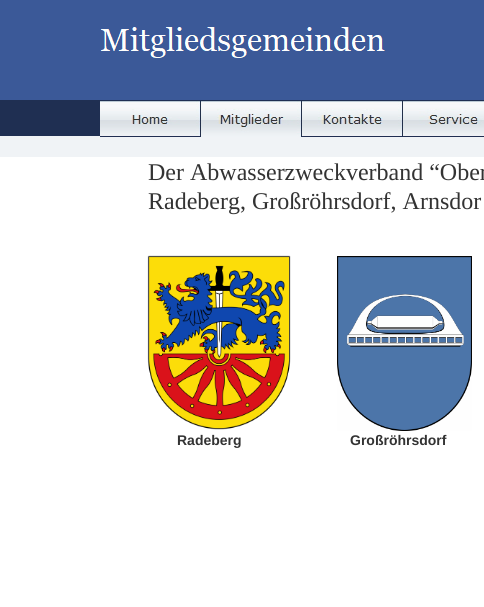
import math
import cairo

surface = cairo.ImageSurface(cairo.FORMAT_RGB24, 484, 607)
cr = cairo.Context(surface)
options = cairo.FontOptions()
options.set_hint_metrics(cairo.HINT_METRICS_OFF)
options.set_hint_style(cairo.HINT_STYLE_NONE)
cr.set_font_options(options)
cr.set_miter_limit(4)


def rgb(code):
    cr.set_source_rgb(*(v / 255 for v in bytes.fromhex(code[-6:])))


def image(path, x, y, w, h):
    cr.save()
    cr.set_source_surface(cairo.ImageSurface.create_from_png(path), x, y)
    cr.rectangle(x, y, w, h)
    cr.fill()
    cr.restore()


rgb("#ffffff")
cr.paint()
image("img/1.png", 0, 0, 484, 157)
image("img/2.png", 100, 27, 285, 31)
image("img/3.png", 100, 101, 101, 36)
image("img/4.png", 201, 101, 101, 36)
image("img/5.png", 302, 101, 101, 36)
image("img/6.png", 403, 101, 81, 36)
image("img/7.png", 147, 255, 144, 175)
image("img/8.png", 337, 256, 135, 175)
cr.select_font_face("Liberation Serif")
cr.set_font_size(24)
rgb("#333333")
cr.move_to(148, 180)
cr.show_text("Der Abwasserzweckverband “Ober")
cr.move_to(148, 209)
cr.show_text("Radeberg, Großröhrsdorf, Arnsdor")
cr.select_font_face("Liberation Sans", cairo.FONT_SLANT_NORMAL, cairo.FONT_WEIGHT_BOLD)
cr.set_font_size(14)
cr.move_to(177, 445)
cr.show_text("Radeberg")
cr.move_to(350, 445)
cr.show_text("Großröhrsdorf")
surface.write_to_png("page.png")
